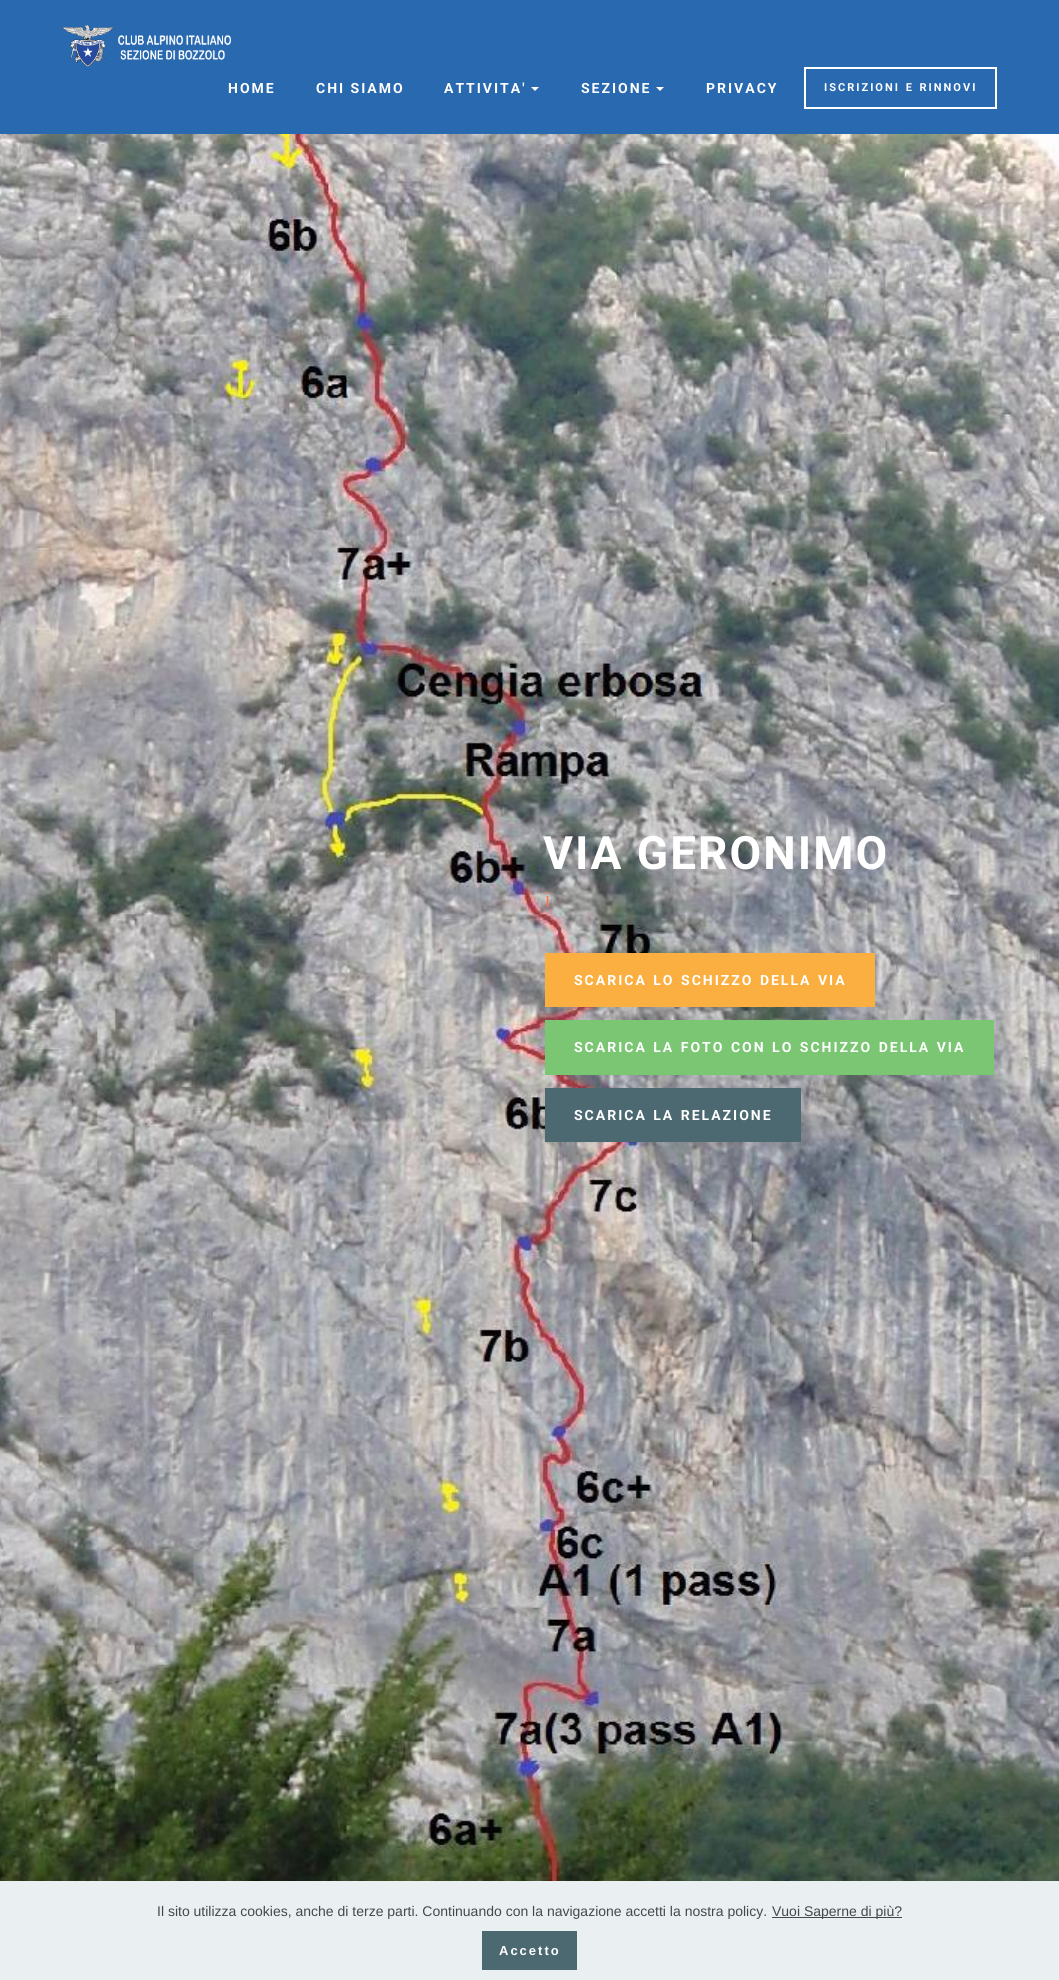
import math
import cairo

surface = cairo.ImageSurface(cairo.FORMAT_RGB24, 1059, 1980)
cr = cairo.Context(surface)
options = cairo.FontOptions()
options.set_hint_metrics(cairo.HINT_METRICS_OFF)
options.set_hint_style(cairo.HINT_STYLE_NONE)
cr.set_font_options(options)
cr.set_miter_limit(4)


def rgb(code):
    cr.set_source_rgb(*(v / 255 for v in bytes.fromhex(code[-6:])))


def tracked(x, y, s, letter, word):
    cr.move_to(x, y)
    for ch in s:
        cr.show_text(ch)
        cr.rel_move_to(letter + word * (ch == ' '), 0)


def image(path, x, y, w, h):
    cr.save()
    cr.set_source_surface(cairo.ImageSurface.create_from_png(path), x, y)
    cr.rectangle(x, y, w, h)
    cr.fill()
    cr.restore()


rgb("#ffffff")
cr.paint()
rgb("#2969b0")
cr.rectangle(0, 0, 1059, 134)
cr.fill()
image("img/1.png", 62, 25, 169, 42)
rgb("#ffffff")
cr.new_path()
cr.move_to(531, 87)
cr.line_to(539, 87)
cr.line_to(535, 91)
cr.close_path()
cr.fill()
cr.new_path()
cr.move_to(656, 87)
cr.line_to(664, 87)
cr.line_to(660, 91)
cr.close_path()
cr.fill()
cr.rectangle(805, 68, 191, 40)
cr.stroke()
image("img/2.png", 0, 134, 1059, 1747)
for x, y, w, h, color in [
    (545, 953, 330, 54, "#faaf40"),
    (545, 1020, 449, 55, "#7ac673"),
    (545, 1088, 256, 54, "#4c6972"),
    (0, 1881, 1059, 99, "#eaeff1"),
    (772, 1917, 130, 1, "#424a4d"),
    (482, 1931, 95, 39, "#4c6972"),
]:
    rgb(color)
    cr.rectangle(x, y, w, h)
    cr.fill()
cr.select_font_face("Roboto", cairo.FONT_SLANT_NORMAL, cairo.FONT_WEIGHT_BOLD)
cr.set_font_size(14)
rgb("#ffffff")
for x, y, s in [
    (228, 93, "HOME"),
    (316, 93, "CHI SIAMO"),
    (444, 93, "ATTIVITA'"),
    (581, 93, "SEZIONE"),
    (706, 93, "PRIVACY"),
]:
    tracked(x, y, s, 2, 0)
cr.set_font_size(11)
tracked(824, 91, "ISCRIZIONI E RINNOVI", 2, 1)
cr.set_font_size(46)
tracked(543, 869, "VIA GERONIMO", 2, 0)
cr.select_font_face("Roboto")
cr.set_font_size(21)
rgb("#f97352")
cr.move_to(545, 907)
cr.show_text("i")
cr.select_font_face("Roboto", cairo.FONT_SLANT_NORMAL, cairo.FONT_WEIGHT_BOLD)
cr.set_font_size(14)
rgb("#ffffff")
for x, y, s in [
    (574, 985, "SCARICA LO SCHIZZO DELLA VIA"),
    (574, 1052, "SCARICA LA FOTO CON LO SCHIZZO DELLA VIA"),
    (574, 1120, "SCARICA LA RELAZIONE"),
]:
    tracked(x, y, s, 2, 1)
cr.select_font_face("Liberation Sans")
rgb("#424a4d")
cr.move_to(157, 1916)
cr.show_text("Il sito utilizza cookies, anche di terze parti. Continuando con la navigazione accetti la nostra policy.")
cr.move_to(772, 1916)
cr.show_text("Vuoi Saperne di più?")
cr.select_font_face("Liberation Sans", cairo.FONT_SLANT_NORMAL, cairo.FONT_WEIGHT_BOLD)
cr.set_font_size(13)
rgb("#ffffff")
tracked(499, 1955, "Accetto", 2, 0)
surface.write_to_png("page.png")
